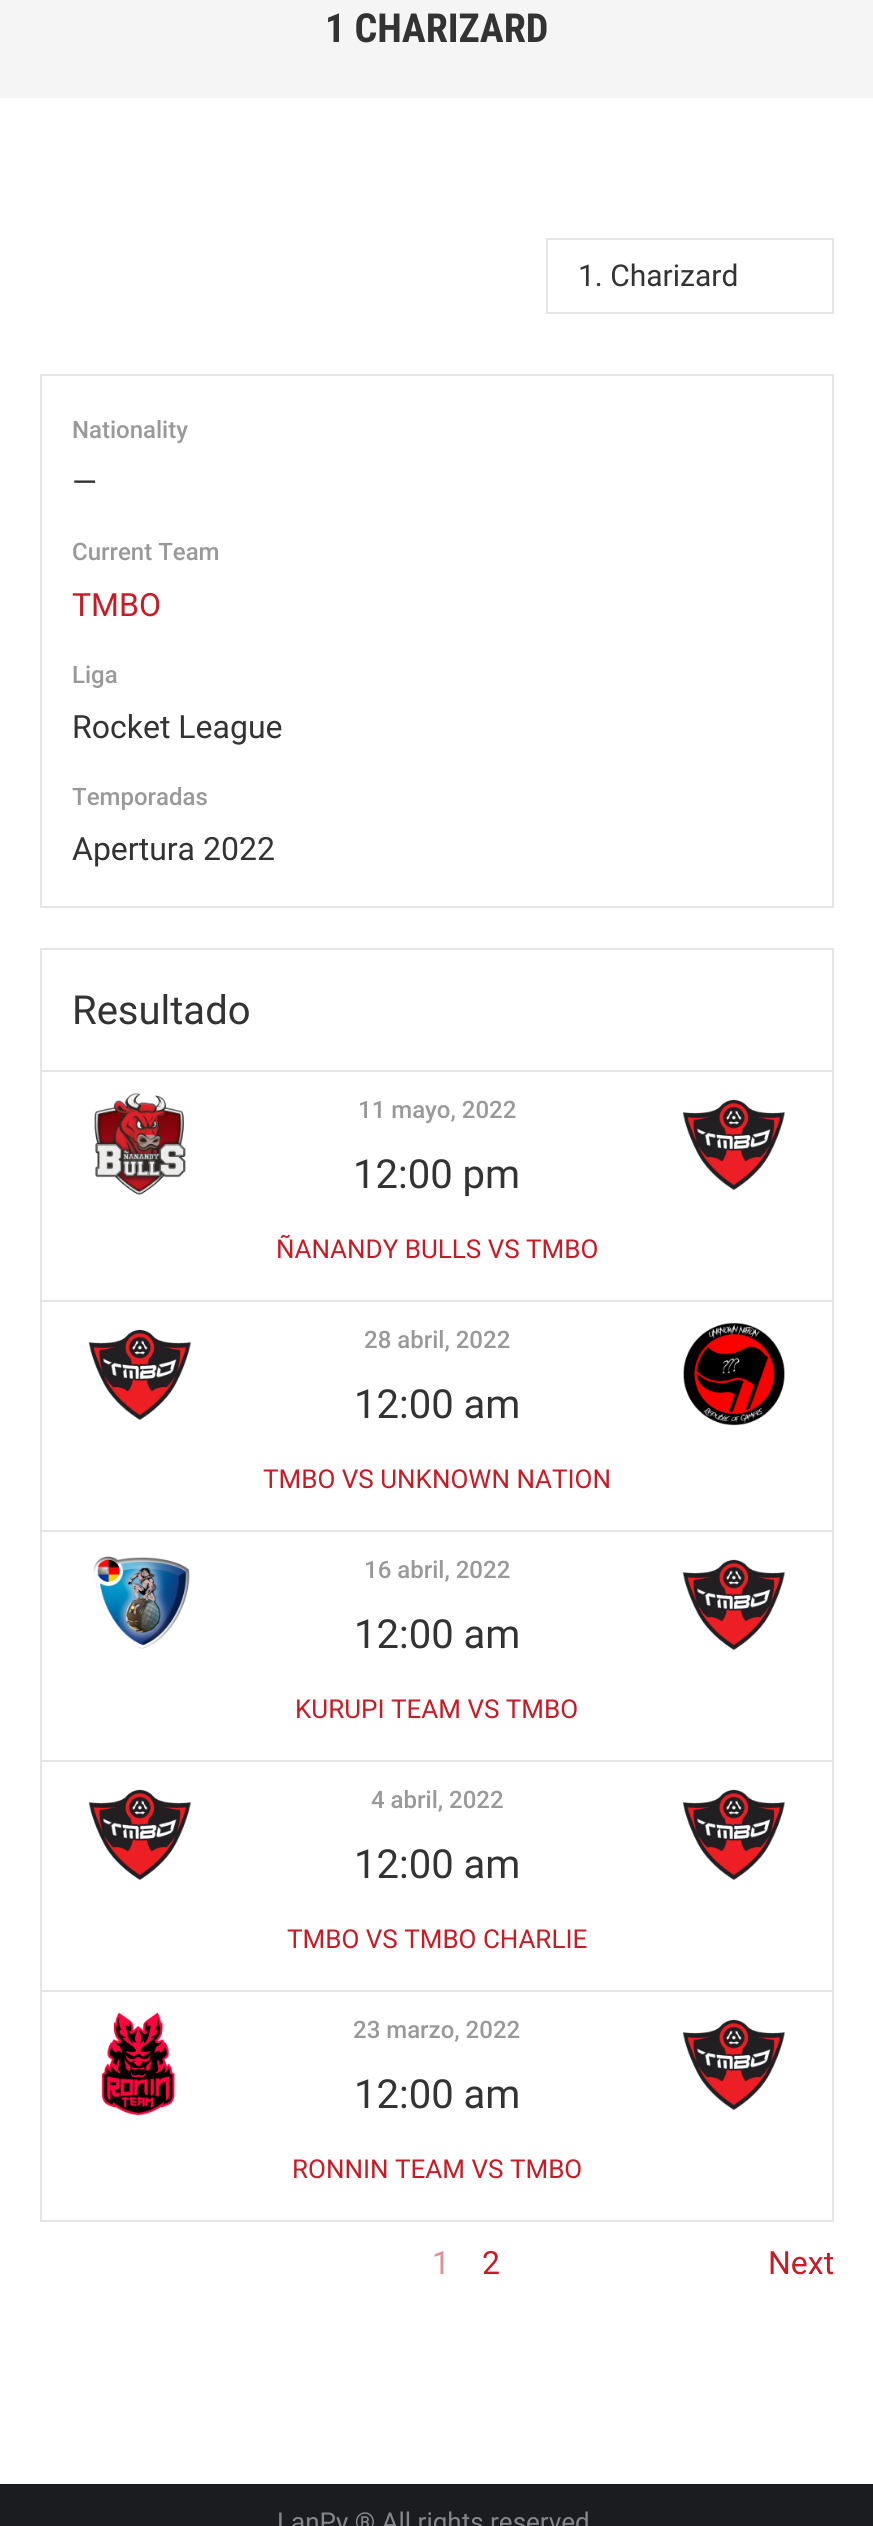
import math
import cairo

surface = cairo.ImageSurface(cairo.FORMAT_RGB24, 873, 2526)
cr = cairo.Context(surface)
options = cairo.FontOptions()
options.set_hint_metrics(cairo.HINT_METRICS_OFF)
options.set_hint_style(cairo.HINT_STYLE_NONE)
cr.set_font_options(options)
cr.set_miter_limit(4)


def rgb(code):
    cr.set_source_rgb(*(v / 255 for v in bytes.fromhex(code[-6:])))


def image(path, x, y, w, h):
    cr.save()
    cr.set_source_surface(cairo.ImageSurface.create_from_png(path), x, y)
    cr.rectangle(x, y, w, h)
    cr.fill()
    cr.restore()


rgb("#ffffff")
cr.paint()
rgb("#f5f5f5")
cr.rectangle(0, 0, 873, 98)
cr.fill()
cr.rectangle(547, 239, 286, 74)
rgb("#e5e5e5")
cr.stroke()
cr.rectangle(41, 375, 792, 532)
cr.stroke()
for x, y, w, h, color in [
    (40, 948, 794, 2, "#e5e5e5"),
    (832, 948, 2, 122, "#e5e5e5"),
    (40, 948, 2, 122, "#e5e5e5"),
    (40, 1070, 794, 2, "#e5e5e5"),
    (832, 1070, 2, 1152, "#e5e5e5"),
    (40, 2220, 794, 2, "#e5e5e5"),
    (40, 1070, 2, 1152, "#e5e5e5"),
]:
    rgb(color)
    cr.rectangle(x, y, w, h)
    cr.fill()
image("img/1.png", 94, 1093, 92, 102)
image("img/2.png", 682, 1099, 104, 92)
cr.rectangle(40, 1300, 794, 2)
cr.fill()
image("img/2.png", 88, 1329, 104, 92)
image("img/3.png", 683, 1322, 102, 104)
cr.rectangle(40, 1530, 794, 2)
cr.fill()
image("img/4.png", 93, 1556, 97, 93)
image("img/2.png", 682, 1559, 104, 92)
cr.rectangle(40, 1760, 794, 2)
cr.fill()
image("img/2.png", 88, 1789, 104, 92)
image("img/2.png", 682, 1789, 104, 92)
cr.rectangle(40, 1990, 794, 2)
cr.fill()
image("img/5.png", 101, 2012, 74, 104)
image("img/2.png", 682, 2019, 104, 92)
rgb("#1a1c20")
cr.rectangle(0, 2484, 873, 42)
cr.fill()
cr.select_font_face("Roboto Condensed", cairo.FONT_SLANT_NORMAL, cairo.FONT_WEIGHT_BOLD)
cr.set_font_size(40)
rgb("#333333")
cr.move_to(325, 42)
cr.show_text("1 CHARIZARD")
cr.select_font_face("Roboto")
cr.set_font_size(30)
cr.move_to(578, 286)
cr.show_text("1. Charizard")
cr.select_font_face("Roboto Medium")
cr.set_font_size(24)
rgb("#999999")
cr.move_to(72, 438)
cr.show_text("Nationality")
cr.select_font_face("Roboto")
cr.set_font_size(32)
rgb("#333333")
cr.move_to(72, 493)
cr.show_text("—")
cr.select_font_face("Roboto Medium")
cr.set_font_size(24)
rgb("#999999")
cr.move_to(72, 560)
cr.show_text("Current Team")
cr.select_font_face("Roboto")
cr.set_font_size(32)
rgb("#c51d27")
cr.move_to(72, 616)
cr.show_text("TMBO")
cr.select_font_face("Roboto Medium")
cr.set_font_size(24)
rgb("#999999")
cr.move_to(72, 683)
cr.show_text("Liga")
cr.select_font_face("Roboto")
cr.set_font_size(32)
rgb("#333333")
cr.move_to(72, 738)
cr.show_text("Rocket League")
cr.select_font_face("Roboto Medium")
cr.set_font_size(24)
rgb("#999999")
cr.move_to(72, 805)
cr.show_text("Temporadas")
cr.select_font_face("Roboto")
cr.set_font_size(32)
rgb("#333333")
cr.move_to(72, 860)
cr.show_text("Apertura 2022")
cr.set_font_size(40)
cr.move_to(72, 1024)
cr.show_text("Resultado")
cr.select_font_face("Roboto Medium")
cr.set_font_size(24)
rgb("#999999")
cr.move_to(358, 1118)
cr.show_text("11 mayo, 2022")
cr.select_font_face("Roboto")
cr.set_font_size(40)
rgb("#333333")
cr.move_to(353, 1188)
cr.show_text("12:00 pm")
cr.set_font_size(26)
rgb("#c51d27")
cr.move_to(276, 1258)
cr.show_text("ÑANANDY BULLS VS TMBO")
cr.select_font_face("Roboto Medium")
cr.set_font_size(24)
rgb("#999999")
cr.move_to(364, 1348)
cr.show_text("28 abril, 2022")
cr.select_font_face("Roboto")
cr.set_font_size(40)
rgb("#333333")
cr.move_to(354, 1418)
cr.show_text("12:00 am")
cr.set_font_size(26)
rgb("#c51d27")
cr.move_to(263, 1488)
cr.show_text("TMBO VS UNKNOWN NATION")
cr.select_font_face("Roboto Medium")
cr.set_font_size(24)
rgb("#999999")
cr.move_to(364, 1578)
cr.show_text("16 abril, 2022")
cr.select_font_face("Roboto")
cr.set_font_size(40)
rgb("#333333")
cr.move_to(354, 1648)
cr.show_text("12:00 am")
cr.set_font_size(26)
rgb("#c51d27")
cr.move_to(295, 1718)
cr.show_text("KURUPI TEAM VS TMBO")
cr.select_font_face("Roboto Medium")
cr.set_font_size(24)
rgb("#999999")
cr.move_to(371, 1808)
cr.show_text("4 abril, 2022")
cr.select_font_face("Roboto")
cr.set_font_size(40)
rgb("#333333")
cr.move_to(354, 1878)
cr.show_text("12:00 am")
cr.set_font_size(26)
rgb("#c51d27")
cr.move_to(287, 1948)
cr.show_text("TMBO VS TMBO CHARLIE")
cr.select_font_face("Roboto Medium")
cr.set_font_size(24)
rgb("#999999")
cr.move_to(353, 2038)
cr.show_text("23 marzo, 2022")
cr.select_font_face("Roboto")
cr.set_font_size(40)
rgb("#333333")
cr.move_to(354, 2108)
cr.show_text("12:00 am")
cr.set_font_size(26)
rgb("#c51d27")
cr.move_to(292, 2178)
cr.show_text("RONNIN TEAM VS TMBO")
cr.set_font_size(32)
rgb("#e28e93")
cr.move_to(432, 2274)
cr.show_text("1")
rgb("#c51d27")
cr.move_to(482, 2274)
cr.show_text("2")
cr.move_to(768, 2274)
cr.show_text("Next")
cr.set_font_size(26)
rgb("#85868c")
cr.move_to(277, 2531)
cr.show_text("LanPy ® All rights reserved")
surface.write_to_png("page.png")
